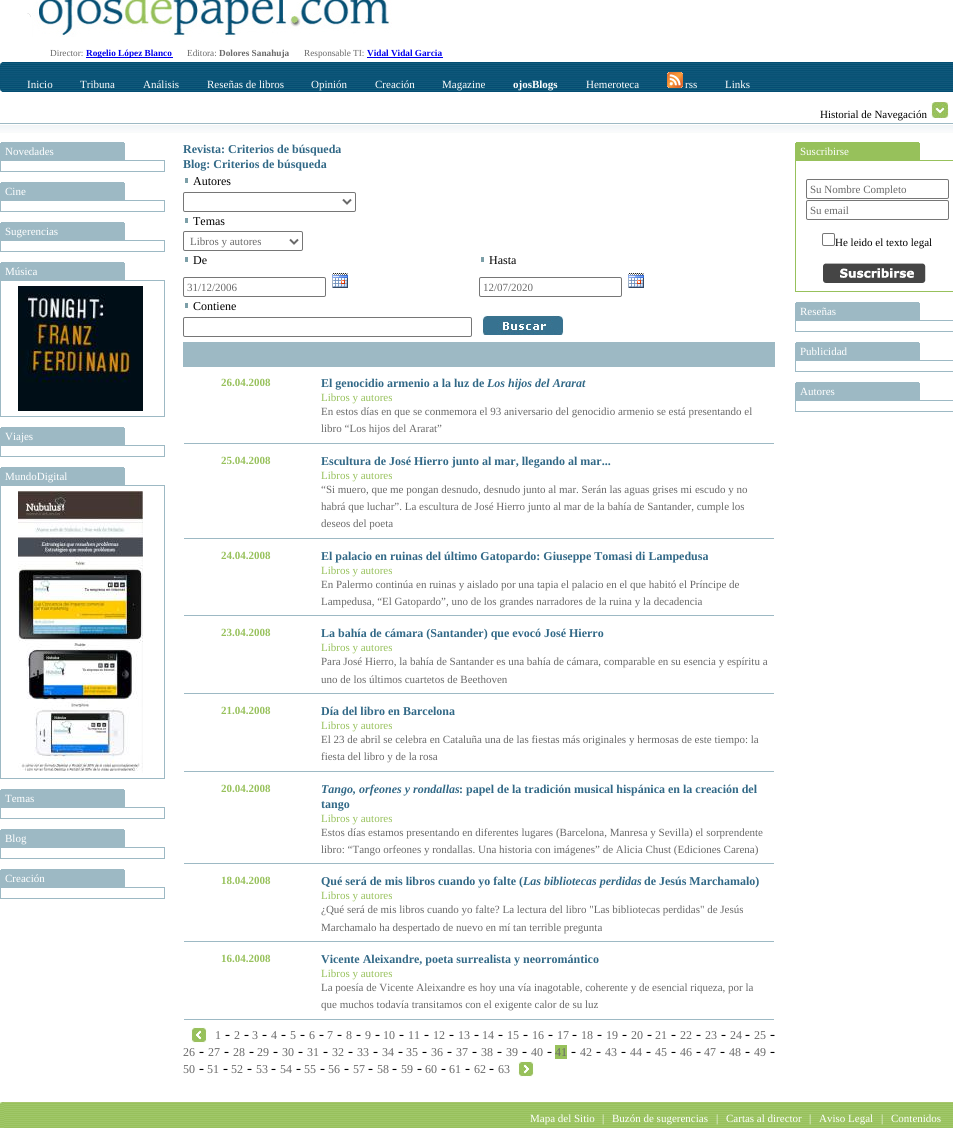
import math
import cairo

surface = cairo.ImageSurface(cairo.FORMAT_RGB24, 953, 1128)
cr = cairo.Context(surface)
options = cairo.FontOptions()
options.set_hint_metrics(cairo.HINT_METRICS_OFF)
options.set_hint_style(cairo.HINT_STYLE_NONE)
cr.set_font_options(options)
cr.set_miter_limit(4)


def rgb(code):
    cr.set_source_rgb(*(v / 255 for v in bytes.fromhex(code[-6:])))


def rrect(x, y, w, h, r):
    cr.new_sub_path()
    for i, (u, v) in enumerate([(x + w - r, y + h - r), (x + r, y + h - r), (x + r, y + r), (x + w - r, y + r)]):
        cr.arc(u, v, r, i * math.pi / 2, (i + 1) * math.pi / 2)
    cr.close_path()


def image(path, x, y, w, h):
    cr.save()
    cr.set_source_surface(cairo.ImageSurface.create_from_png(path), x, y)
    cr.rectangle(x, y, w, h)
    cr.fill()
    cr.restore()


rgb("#ffffff")
cr.paint()
image("img/1.png", 27, 0, 365, 37)
for x, y, w, h, color in [
    (86, 57, 87, 1, "#0000ee"),
    (367, 57, 76, 1, "#0000ee"),
    (3, 62, 950, 30, "#034d72"),
]:
    rgb(color)
    cr.rectangle(x, y, w, h)
    cr.fill()
image("img/2.png", 3, 63, 950, 28)
image("img/3.png", 0, 62, 3, 30)
image("img/4.png", 667, 72, 16, 16)
image("img/5.png", 930, 102, 19, 16)
image("img/6.png", 0, 125, 953, 8)
for x, y, w, h, color in [
    (0, 123, 953, 1, "#9db9c4"),
    (0, 144, 125, 16, "#9db9c4"),
    (1, 142, 123, 1, "#9db9c4"),
    (0, 143, 125, 1, "#9db9c4"),
]:
    rgb(color)
    cr.rectangle(x, y, w, h)
    cr.fill()
cr.rectangle(0.5, 160.5, 164, 11)
cr.set_line_width(1)
cr.stroke()
for x, y, w, h, color in [
    (0, 184, 125, 16, "#9db9c4"),
    (1, 182, 123, 1, "#9db9c4"),
    (0, 183, 125, 1, "#9db9c4"),
]:
    rgb(color)
    cr.rectangle(x, y, w, h)
    cr.fill()
cr.rectangle(0.5, 200.5, 164, 11)
cr.stroke()
for x, y, w, h, color in [
    (0, 224, 125, 16, "#9db9c4"),
    (1, 222, 123, 1, "#9db9c4"),
    (0, 223, 125, 1, "#9db9c4"),
]:
    rgb(color)
    cr.rectangle(x, y, w, h)
    cr.fill()
cr.rectangle(0.5, 240.5, 164, 11)
cr.stroke()
for x, y, w, h, color in [
    (0, 264, 125, 16, "#9db9c4"),
    (1, 262, 123, 1, "#9db9c4"),
    (0, 263, 125, 1, "#9db9c4"),
]:
    rgb(color)
    cr.rectangle(x, y, w, h)
    cr.fill()
cr.rectangle(0.5, 280.5, 164, 136)
cr.stroke()
image("img/7.png", 18, 286, 125, 125)
for x, y, w, h, color in [
    (0, 429, 125, 16, "#9db9c4"),
    (1, 427, 123, 1, "#9db9c4"),
    (0, 428, 125, 1, "#9db9c4"),
]:
    rgb(color)
    cr.rectangle(x, y, w, h)
    cr.fill()
cr.rectangle(0.5, 445.5, 164, 11)
cr.stroke()
for x, y, w, h, color in [
    (0, 469, 125, 16, "#9db9c4"),
    (1, 467, 123, 1, "#9db9c4"),
    (0, 468, 125, 1, "#9db9c4"),
]:
    rgb(color)
    cr.rectangle(x, y, w, h)
    cr.fill()
cr.rectangle(0.5, 485.5, 164, 293)
cr.stroke()
image("img/8.png", 18, 491, 125, 282)
for x, y, w, h, color in [
    (0, 791, 125, 16, "#9db9c4"),
    (1, 789, 123, 1, "#9db9c4"),
    (0, 790, 125, 1, "#9db9c4"),
]:
    rgb(color)
    cr.rectangle(x, y, w, h)
    cr.fill()
cr.rectangle(0.5, 807.5, 164, 11)
cr.stroke()
for x, y, w, h, color in [
    (0, 831, 125, 16, "#9db9c4"),
    (1, 829, 123, 1, "#9db9c4"),
    (0, 830, 125, 1, "#9db9c4"),
]:
    rgb(color)
    cr.rectangle(x, y, w, h)
    cr.fill()
cr.rectangle(0.5, 847.5, 164, 11)
cr.stroke()
for x, y, w, h, color in [
    (0, 871, 125, 16, "#9db9c4"),
    (1, 869, 123, 1, "#9db9c4"),
    (0, 870, 125, 1, "#9db9c4"),
]:
    rgb(color)
    cr.rectangle(x, y, w, h)
    cr.fill()
cr.rectangle(0.5, 887.5, 164, 11)
cr.stroke()
rgb("#7c9fa8")
cr.rectangle(185, 178, 3, 5)
cr.fill()
rrect(183.5, 192.5, 172, 19, 1.5)
rgb("#767676")
cr.stroke()
cr.new_path()
cr.move_to(343, 199.5)
cr.line_to(347, 203.5)
cr.line_to(351, 199.5)
rgb("#696969")
cr.set_line_width(2)
cr.stroke()
rgb("#7c9fa8")
cr.rectangle(185, 218, 3, 5)
cr.fill()
rrect(183.5, 231.5, 119, 19, 1.5)
rgb("#767676")
cr.set_line_width(1)
cr.stroke()
cr.new_path()
cr.move_to(290, 239.5)
cr.line_to(294, 243.5)
cr.line_to(298, 239.5)
rgb("#696969")
cr.set_line_width(2)
cr.stroke()
rgb("#7c9fa8")
cr.rectangle(185, 257, 3, 5)
cr.fill()
rrect(183.5, 277.5, 142, 19, 1.5)
rgb("#767676")
cr.set_line_width(1)
cr.stroke()
image("img/9.png", 332, 273, 16, 15)
rgb("#7c9fa8")
cr.rectangle(481, 257, 3, 5)
cr.fill()
rrect(479.5, 277.5, 142, 19, 1.5)
rgb("#767676")
cr.stroke()
image("img/9.png", 628, 273, 16, 15)
rgb("#7c9fa8")
cr.rectangle(185, 303, 3, 5)
cr.fill()
rrect(183.5, 317.5, 288, 19, 1.5)
rgb("#767676")
cr.stroke()
image("img/10.png", 481, 315, 83, 20)
for x, y, w, h, color in [
    (183, 342, 592, 25, "#9db9c4"),
    (184, 443, 590, 1, "#9db9c4"),
    (184, 538, 590, 1, "#9db9c4"),
    (184, 615, 590, 1, "#9db9c4"),
    (184, 693, 590, 1, "#9db9c4"),
    (184, 771, 590, 1, "#9db9c4"),
    (184, 863, 590, 1, "#9db9c4"),
    (184, 941, 590, 1, "#9db9c4"),
    (184, 1019, 590, 1, "#9db9c4"),
]:
    rgb(color)
    cr.rectangle(x, y, w, h)
    cr.fill()
image("img/11.png", 191, 1027, 16, 16)
rgb("#97c15b")
cr.rectangle(555, 1045, 12, 14)
cr.fill()
image("img/12.png", 518, 1061, 16, 16)
cr.rectangle(795, 143, 125, 17)
cr.fill()
cr.rectangle(796, 142, 123, 1)
cr.fill()
cr.rectangle(795.5, 160.5, 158, 131)
cr.stroke()
rrect(806.5, 179.5, 142, 19, 1.5)
rgb("#767676")
cr.stroke()
rrect(806.5, 200.5, 142, 19, 1.5)
cr.stroke()
rrect(822.5, 233.5, 12, 12, 1.5)
cr.stroke()
image("img/13.png", 823, 263, 103, 20)
rgb("#9db9c4")
cr.rectangle(795, 303, 125, 17)
cr.fill()
cr.rectangle(796, 302, 123, 1)
cr.fill()
cr.rectangle(795.5, 320.5, 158, 11)
cr.stroke()
cr.rectangle(795, 343, 125, 17)
cr.fill()
cr.rectangle(796, 342, 123, 1)
cr.fill()
cr.rectangle(795.5, 360.5, 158, 11)
cr.stroke()
cr.rectangle(795, 383, 125, 17)
cr.fill()
cr.rectangle(796, 382, 123, 1)
cr.fill()
cr.rectangle(795.5, 400.5, 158, 11)
cr.stroke()
image("img/14.png", 4, 1102, 949, 26)
image("img/15.png", 0, 1102, 4, 26)
cr.select_font_face("Liberation Serif")
cr.set_font_size(9.25)
rgb("#696969")
cr.move_to(50, 56)
cr.show_text("Director:")
cr.select_font_face("Liberation Serif", cairo.FONT_SLANT_NORMAL, cairo.FONT_WEIGHT_BOLD)
rgb("#0000ee")
cr.move_to(86, 56)
cr.show_text("Rogelio López Blanco")
cr.select_font_face("Liberation Serif")
rgb("#696969")
cr.move_to(187, 56)
cr.show_text("Editora:")
cr.select_font_face("Liberation Serif", cairo.FONT_SLANT_NORMAL, cairo.FONT_WEIGHT_BOLD)
cr.move_to(219, 56)
cr.show_text("Dolores Sanahuja")
cr.select_font_face("Liberation Serif")
cr.move_to(304, 56)
cr.show_text("Responsable TI:")
cr.select_font_face("Liberation Serif", cairo.FONT_SLANT_NORMAL, cairo.FONT_WEIGHT_BOLD)
rgb("#0000ee")
cr.move_to(367, 56)
cr.show_text("Vidal Vidal Garcia")
cr.select_font_face("Liberation Serif")
cr.set_font_size(11)
rgb("#ffffff")
for x, y, s in [
    (27, 88, "Inicio"),
    (80, 88, "Tribuna"),
    (143, 88, "Análisis"),
    (207, 88, "Reseñas de libros"),
    (311, 88, "Opinión"),
    (375, 88, "Creación"),
    (442, 88, "Magazine"),
]:
    cr.move_to(x, y)
    cr.show_text(s)
cr.select_font_face("Liberation Serif", cairo.FONT_SLANT_NORMAL, cairo.FONT_WEIGHT_BOLD)
cr.move_to(513, 88)
cr.show_text("ojosBlogs")
cr.select_font_face("Liberation Serif")
for x, y, s in [
    (586, 88, "Hemeroteca"),
    (685, 88, "rss"),
    (725, 88, "Links"),
]:
    cr.move_to(x, y)
    cr.show_text(s)
rgb("#000000")
cr.move_to(820, 118)
cr.show_text("Historial de Navegación")
rgb("#ffffff")
for x, y, s in [
    (5, 155, "Novedades"),
    (5, 195, "Cine"),
    (5, 235, "Sugerencias"),
    (5, 275, "Música"),
    (5, 440, "Viajes"),
    (5, 480, "MundoDigital"),
    (5, 802, "Temas"),
    (5, 842, "Blog"),
    (5, 882, "Creación"),
]:
    cr.move_to(x, y)
    cr.show_text(s)
cr.select_font_face("Liberation Serif", cairo.FONT_SLANT_NORMAL, cairo.FONT_WEIGHT_BOLD)
cr.set_font_size(12)
rgb("#326987")
cr.move_to(183, 153)
cr.show_text("Revista: Criterios de búsqueda")
cr.move_to(183, 168)
cr.show_text("Blog: Criterios de búsqueda")
cr.select_font_face("Liberation Serif")
rgb("#000000")
cr.move_to(193, 185)
cr.show_text("Autores")
cr.move_to(193, 225)
cr.show_text("Temas")
cr.set_font_size(11)
rgb("#696969")
cr.move_to(190, 245)
cr.show_text("Libros y autores")
cr.set_font_size(12)
rgb("#000000")
cr.move_to(193, 264)
cr.show_text("De")
cr.set_font_size(11)
rgb("#696969")
cr.move_to(187, 291)
cr.show_text("31/12/2006")
cr.set_font_size(12)
rgb("#000000")
cr.move_to(489, 264)
cr.show_text("Hasta")
cr.set_font_size(11)
rgb("#696969")
cr.move_to(483, 291)
cr.show_text("12/07/2020")
cr.set_font_size(12)
rgb("#000000")
cr.move_to(193, 310)
cr.show_text("Contiene")
cr.select_font_face("Liberation Serif", cairo.FONT_SLANT_NORMAL, cairo.FONT_WEIGHT_BOLD)
cr.set_font_size(11)
rgb("#97c15b")
cr.move_to(221, 386)
cr.show_text("26.04.2008")
cr.set_font_size(12)
rgb("#326987")
cr.move_to(321, 387)
cr.show_text("El genocidio armenio a la luz de")
cr.select_font_face("Liberation Serif", cairo.FONT_SLANT_ITALIC, cairo.FONT_WEIGHT_BOLD)
cr.move_to(487, 387)
cr.show_text("Los hijos del Ararat")
cr.select_font_face("Liberation Serif")
cr.set_font_size(11)
rgb("#97c15b")
cr.move_to(321, 401)
cr.show_text("Libros y autores")
rgb("#696969")
cr.move_to(321, 415)
cr.show_text("En estos días en que se conmemora el 93 aniversario del genocidio armenio se está presentando el")
cr.move_to(321, 432)
cr.show_text("libro “Los hijos del Ararat”")
cr.select_font_face("Liberation Serif", cairo.FONT_SLANT_NORMAL, cairo.FONT_WEIGHT_BOLD)
rgb("#97c15b")
cr.move_to(221, 464)
cr.show_text("25.04.2008")
cr.set_font_size(12)
rgb("#326987")
cr.move_to(321, 465)
cr.show_text("Escultura de José Hierro junto al mar, llegando al mar...")
cr.select_font_face("Liberation Serif")
cr.set_font_size(11)
rgb("#97c15b")
cr.move_to(321, 479)
cr.show_text("Libros y autores")
rgb("#696969")
for x, y, s in [
    (321, 493, "“Si muero, que me pongan desnudo, desnudo junto al mar. Serán las aguas grises mi escudo y no"),
    (321, 510, "habrá que luchar”. La escultura de José Hierro junto al mar de la bahía de Santander, cumple los"),
    (321, 527, "deseos del poeta"),
]:
    cr.move_to(x, y)
    cr.show_text(s)
cr.select_font_face("Liberation Serif", cairo.FONT_SLANT_NORMAL, cairo.FONT_WEIGHT_BOLD)
rgb("#97c15b")
cr.move_to(221, 559)
cr.show_text("24.04.2008")
cr.set_font_size(12)
rgb("#326987")
cr.move_to(321, 560)
cr.show_text("El palacio en ruinas del último Gatopardo: Giuseppe Tomasi di Lampedusa")
cr.select_font_face("Liberation Serif")
cr.set_font_size(11)
rgb("#97c15b")
cr.move_to(321, 574)
cr.show_text("Libros y autores")
rgb("#696969")
cr.move_to(321, 588)
cr.show_text("En Palermo continúa en ruinas y aislado por una tapia el palacio en el que habitó el Príncipe de")
cr.move_to(321, 605)
cr.show_text("Lampedusa, “El Gatopardo”, uno de los grandes narradores de la ruina y la decadencia")
cr.select_font_face("Liberation Serif", cairo.FONT_SLANT_NORMAL, cairo.FONT_WEIGHT_BOLD)
rgb("#97c15b")
cr.move_to(221, 636)
cr.show_text("23.04.2008")
cr.set_font_size(12)
rgb("#326987")
cr.move_to(321, 637)
cr.show_text("La bahía de cámara (Santander) que evocó José Hierro")
cr.select_font_face("Liberation Serif")
cr.set_font_size(11)
rgb("#97c15b")
cr.move_to(321, 651)
cr.show_text("Libros y autores")
rgb("#696969")
cr.move_to(321, 665)
cr.show_text("Para José Hierro, la bahía de Santander es una bahía de cámara, comparable en su esencia y espíritu a")
cr.move_to(321, 683)
cr.show_text("uno de los últimos cuartetos de Beethoven")
cr.select_font_face("Liberation Serif", cairo.FONT_SLANT_NORMAL, cairo.FONT_WEIGHT_BOLD)
rgb("#97c15b")
cr.move_to(221, 714)
cr.show_text("21.04.2008")
cr.set_font_size(12)
rgb("#326987")
cr.move_to(321, 715)
cr.show_text("Día del libro en Barcelona")
cr.select_font_face("Liberation Serif")
cr.set_font_size(11)
rgb("#97c15b")
cr.move_to(321, 729)
cr.show_text("Libros y autores")
rgb("#696969")
cr.move_to(321, 743)
cr.show_text("El 23 de abril se celebra en Cataluña una de las fiestas más originales y hermosas de este tiempo: la")
cr.move_to(321, 760)
cr.show_text("fiesta del libro y de la rosa")
cr.select_font_face("Liberation Serif", cairo.FONT_SLANT_NORMAL, cairo.FONT_WEIGHT_BOLD)
rgb("#97c15b")
cr.move_to(221, 792)
cr.show_text("20.04.2008")
cr.select_font_face("Liberation Serif", cairo.FONT_SLANT_ITALIC, cairo.FONT_WEIGHT_BOLD)
cr.set_font_size(12)
rgb("#326987")
cr.move_to(321, 793)
cr.show_text("Tango, orfeones y rondallas")
cr.select_font_face("Liberation Serif", cairo.FONT_SLANT_NORMAL, cairo.FONT_WEIGHT_BOLD)
cr.move_to(459, 793)
cr.show_text(": papel de la tradición musical hispánica en la creación del")
cr.move_to(321, 808)
cr.show_text("tango")
cr.select_font_face("Liberation Serif")
cr.set_font_size(11)
rgb("#97c15b")
cr.move_to(321, 822)
cr.show_text("Libros y autores")
rgb("#696969")
cr.move_to(321, 836)
cr.show_text("Estos días estamos presentando en diferentes lugares (Barcelona, Manresa y Sevilla) el sorprendente")
cr.move_to(321, 853)
cr.show_text("libro: “Tango orfeones y rondallas. Una historia con imágenes” de Alicia Chust (Ediciones Carena)")
cr.select_font_face("Liberation Serif", cairo.FONT_SLANT_NORMAL, cairo.FONT_WEIGHT_BOLD)
rgb("#97c15b")
cr.move_to(221, 884)
cr.show_text("18.04.2008")
cr.set_font_size(12)
rgb("#326987")
cr.move_to(321, 885)
cr.show_text("Qué será de mis libros cuando yo falte (")
cr.select_font_face("Liberation Serif", cairo.FONT_SLANT_ITALIC, cairo.FONT_WEIGHT_BOLD)
cr.move_to(523, 885)
cr.show_text("Las bibliotecas perdidas")
cr.select_font_face("Liberation Serif", cairo.FONT_SLANT_NORMAL, cairo.FONT_WEIGHT_BOLD)
cr.move_to(644, 885)
cr.show_text("de Jesús Marchamalo)")
cr.select_font_face("Liberation Serif")
cr.set_font_size(11)
rgb("#97c15b")
cr.move_to(321, 899)
cr.show_text("Libros y autores")
rgb("#696969")
cr.move_to(321, 913)
cr.show_text("¿Qué será de mis libros cuando yo falte? La lectura del libro \"Las bibliotecas perdidas\" de Jesús")
cr.move_to(321, 931)
cr.show_text("Marchamalo ha despertado de nuevo en mí tan terrible pregunta")
cr.select_font_face("Liberation Serif", cairo.FONT_SLANT_NORMAL, cairo.FONT_WEIGHT_BOLD)
rgb("#97c15b")
cr.move_to(221, 962)
cr.show_text("16.04.2008")
cr.set_font_size(12)
rgb("#326987")
cr.move_to(321, 963)
cr.show_text("Vicente Aleixandre, poeta surrealista y neorromántico")
cr.select_font_face("Liberation Serif")
cr.set_font_size(11)
rgb("#97c15b")
cr.move_to(321, 977)
cr.show_text("Libros y autores")
rgb("#696969")
cr.move_to(321, 991)
cr.show_text("La poesía de Vicente Aleixandre es hoy una vía inagotable, coherente y de esencial riqueza, por la")
cr.move_to(321, 1008)
cr.show_text("que muchos todavía transitamos con el exigente calor de su luz")
cr.set_font_size(12)
cr.move_to(215, 1039)
cr.show_text("1")
cr.set_font_size(15)
rgb("#000000")
cr.move_to(225, 1039)
cr.show_text("-")
cr.set_font_size(12)
rgb("#696969")
cr.move_to(234, 1039)
cr.show_text("2")
cr.set_font_size(15)
rgb("#000000")
cr.move_to(244, 1039)
cr.show_text("-")
cr.set_font_size(12)
rgb("#696969")
cr.move_to(252, 1039)
cr.show_text("3")
cr.set_font_size(15)
rgb("#000000")
cr.move_to(262, 1039)
cr.show_text("-")
cr.set_font_size(12)
rgb("#696969")
cr.move_to(271, 1039)
cr.show_text("4")
cr.set_font_size(15)
rgb("#000000")
cr.move_to(281, 1039)
cr.show_text("-")
cr.set_font_size(12)
rgb("#696969")
cr.move_to(290, 1039)
cr.show_text("5")
cr.set_font_size(15)
rgb("#000000")
cr.move_to(300, 1039)
cr.show_text("-")
cr.set_font_size(12)
rgb("#696969")
cr.move_to(309, 1039)
cr.show_text("6")
cr.set_font_size(15)
rgb("#000000")
cr.move_to(319, 1039)
cr.show_text("-")
cr.set_font_size(12)
rgb("#696969")
cr.move_to(327, 1039)
cr.show_text("7")
cr.set_font_size(15)
rgb("#000000")
cr.move_to(337, 1039)
cr.show_text("-")
cr.set_font_size(12)
rgb("#696969")
cr.move_to(346, 1039)
cr.show_text("8")
cr.set_font_size(15)
rgb("#000000")
cr.move_to(356, 1039)
cr.show_text("-")
cr.set_font_size(12)
rgb("#696969")
cr.move_to(365, 1039)
cr.show_text("9")
cr.set_font_size(15)
rgb("#000000")
cr.move_to(375, 1039)
cr.show_text("-")
cr.set_font_size(12)
rgb("#696969")
cr.move_to(383, 1039)
cr.show_text("10")
cr.set_font_size(15)
rgb("#000000")
cr.move_to(399, 1039)
cr.show_text("-")
cr.set_font_size(12)
rgb("#696969")
cr.move_to(408, 1039)
cr.show_text("11")
cr.set_font_size(15)
rgb("#000000")
cr.move_to(424, 1039)
cr.show_text("-")
cr.set_font_size(12)
rgb("#696969")
cr.move_to(433, 1039)
cr.show_text("12")
cr.set_font_size(15)
rgb("#000000")
cr.move_to(449, 1039)
cr.show_text("-")
cr.set_font_size(12)
rgb("#696969")
cr.move_to(458, 1039)
cr.show_text("13")
cr.set_font_size(15)
rgb("#000000")
cr.move_to(474, 1039)
cr.show_text("-")
cr.set_font_size(12)
rgb("#696969")
cr.move_to(482, 1039)
cr.show_text("14")
cr.set_font_size(15)
rgb("#000000")
cr.move_to(498, 1039)
cr.show_text("-")
cr.set_font_size(12)
rgb("#696969")
cr.move_to(507, 1039)
cr.show_text("15")
cr.set_font_size(15)
rgb("#000000")
cr.move_to(523, 1039)
cr.show_text("-")
cr.set_font_size(12)
rgb("#696969")
cr.move_to(532, 1039)
cr.show_text("16")
cr.set_font_size(15)
rgb("#000000")
cr.move_to(548, 1039)
cr.show_text("-")
cr.set_font_size(12)
rgb("#696969")
cr.move_to(557, 1039)
cr.show_text("17")
cr.set_font_size(15)
rgb("#000000")
cr.move_to(572, 1039)
cr.show_text("-")
cr.set_font_size(12)
rgb("#696969")
cr.move_to(581, 1039)
cr.show_text("18")
cr.set_font_size(15)
rgb("#000000")
cr.move_to(597, 1039)
cr.show_text("-")
cr.set_font_size(12)
rgb("#696969")
cr.move_to(606, 1039)
cr.show_text("19")
cr.set_font_size(15)
rgb("#000000")
cr.move_to(622, 1039)
cr.show_text("-")
cr.set_font_size(12)
rgb("#696969")
cr.move_to(631, 1039)
cr.show_text("20")
cr.set_font_size(15)
rgb("#000000")
cr.move_to(647, 1039)
cr.show_text("-")
cr.set_font_size(12)
rgb("#696969")
cr.move_to(655, 1039)
cr.show_text("21")
cr.set_font_size(15)
rgb("#000000")
cr.move_to(671, 1039)
cr.show_text("-")
cr.set_font_size(12)
rgb("#696969")
cr.move_to(680, 1039)
cr.show_text("22")
cr.set_font_size(15)
rgb("#000000")
cr.move_to(696, 1039)
cr.show_text("-")
cr.set_font_size(12)
rgb("#696969")
cr.move_to(705, 1039)
cr.show_text("23")
cr.set_font_size(15)
rgb("#000000")
cr.move_to(721, 1039)
cr.show_text("-")
cr.set_font_size(12)
rgb("#696969")
cr.move_to(730, 1039)
cr.show_text("24")
cr.set_font_size(15)
rgb("#000000")
cr.move_to(745, 1039)
cr.show_text("-")
cr.set_font_size(12)
rgb("#696969")
cr.move_to(754, 1039)
cr.show_text("25")
cr.set_font_size(15)
rgb("#000000")
cr.move_to(770, 1039)
cr.show_text("-")
cr.set_font_size(12)
rgb("#696969")
cr.move_to(183, 1056)
cr.show_text("26")
cr.set_font_size(15)
rgb("#000000")
cr.move_to(199, 1056)
cr.show_text("-")
cr.set_font_size(12)
rgb("#696969")
cr.move_to(208, 1056)
cr.show_text("27")
cr.set_font_size(15)
rgb("#000000")
cr.move_to(224, 1056)
cr.show_text("-")
cr.set_font_size(12)
rgb("#696969")
cr.move_to(233, 1056)
cr.show_text("28")
cr.set_font_size(15)
rgb("#000000")
cr.move_to(249, 1056)
cr.show_text("-")
cr.set_font_size(12)
rgb("#696969")
cr.move_to(257, 1056)
cr.show_text("29")
cr.set_font_size(15)
rgb("#000000")
cr.move_to(273, 1056)
cr.show_text("-")
cr.set_font_size(12)
rgb("#696969")
cr.move_to(282, 1056)
cr.show_text("30")
cr.set_font_size(15)
rgb("#000000")
cr.move_to(298, 1056)
cr.show_text("-")
cr.set_font_size(12)
rgb("#696969")
cr.move_to(307, 1056)
cr.show_text("31")
cr.set_font_size(15)
rgb("#000000")
cr.move_to(323, 1056)
cr.show_text("-")
cr.set_font_size(12)
rgb("#696969")
cr.move_to(332, 1056)
cr.show_text("32")
cr.set_font_size(15)
rgb("#000000")
cr.move_to(348, 1056)
cr.show_text("-")
cr.set_font_size(12)
rgb("#696969")
cr.move_to(357, 1056)
cr.show_text("33")
cr.set_font_size(15)
rgb("#000000")
cr.move_to(373, 1056)
cr.show_text("-")
cr.set_font_size(12)
rgb("#696969")
cr.move_to(382, 1056)
cr.show_text("34")
cr.set_font_size(15)
rgb("#000000")
cr.move_to(398, 1056)
cr.show_text("-")
cr.set_font_size(12)
rgb("#696969")
cr.move_to(406, 1056)
cr.show_text("35")
cr.set_font_size(15)
rgb("#000000")
cr.move_to(422, 1056)
cr.show_text("-")
cr.set_font_size(12)
rgb("#696969")
cr.move_to(431, 1056)
cr.show_text("36")
cr.set_font_size(15)
rgb("#000000")
cr.move_to(447, 1056)
cr.show_text("-")
cr.set_font_size(12)
rgb("#696969")
cr.move_to(456, 1056)
cr.show_text("37")
cr.set_font_size(15)
rgb("#000000")
cr.move_to(472, 1056)
cr.show_text("-")
cr.set_font_size(12)
rgb("#696969")
cr.move_to(481, 1056)
cr.show_text("38")
cr.set_font_size(15)
rgb("#000000")
cr.move_to(497, 1056)
cr.show_text("-")
cr.set_font_size(12)
rgb("#696969")
cr.move_to(506, 1056)
cr.show_text("39")
cr.set_font_size(15)
rgb("#000000")
cr.move_to(522, 1056)
cr.show_text("-")
cr.set_font_size(12)
rgb("#696969")
cr.move_to(531, 1056)
cr.show_text("40")
cr.set_font_size(15)
rgb("#000000")
cr.move_to(547, 1056)
cr.show_text("-")
cr.set_font_size(12)
rgb("#696969")
cr.move_to(555, 1056)
cr.show_text("41")
cr.set_font_size(15)
rgb("#000000")
cr.move_to(571, 1056)
cr.show_text("-")
cr.set_font_size(12)
rgb("#696969")
cr.move_to(580, 1056)
cr.show_text("42")
cr.set_font_size(15)
rgb("#000000")
cr.move_to(596, 1056)
cr.show_text("-")
cr.set_font_size(12)
rgb("#696969")
cr.move_to(605, 1056)
cr.show_text("43")
cr.set_font_size(15)
rgb("#000000")
cr.move_to(621, 1056)
cr.show_text("-")
cr.set_font_size(12)
rgb("#696969")
cr.move_to(630, 1056)
cr.show_text("44")
cr.set_font_size(15)
rgb("#000000")
cr.move_to(646, 1056)
cr.show_text("-")
cr.set_font_size(12)
rgb("#696969")
cr.move_to(655, 1056)
cr.show_text("45")
cr.set_font_size(15)
rgb("#000000")
cr.move_to(671, 1056)
cr.show_text("-")
cr.set_font_size(12)
rgb("#696969")
cr.move_to(680, 1056)
cr.show_text("46")
cr.set_font_size(15)
rgb("#000000")
cr.move_to(696, 1056)
cr.show_text("-")
cr.set_font_size(12)
rgb("#696969")
cr.move_to(704, 1056)
cr.show_text("47")
cr.set_font_size(15)
rgb("#000000")
cr.move_to(720, 1056)
cr.show_text("-")
cr.set_font_size(12)
rgb("#696969")
cr.move_to(729, 1056)
cr.show_text("48")
cr.set_font_size(15)
rgb("#000000")
cr.move_to(745, 1056)
cr.show_text("-")
cr.set_font_size(12)
rgb("#696969")
cr.move_to(754, 1056)
cr.show_text("49")
cr.set_font_size(15)
rgb("#000000")
cr.move_to(770, 1056)
cr.show_text("-")
cr.set_font_size(12)
rgb("#696969")
cr.move_to(183, 1073)
cr.show_text("50")
cr.set_font_size(15)
rgb("#000000")
cr.move_to(199, 1073)
cr.show_text("-")
cr.set_font_size(12)
rgb("#696969")
cr.move_to(207, 1073)
cr.show_text("51")
cr.set_font_size(15)
rgb("#000000")
cr.move_to(223, 1073)
cr.show_text("-")
cr.set_font_size(12)
rgb("#696969")
cr.move_to(231, 1073)
cr.show_text("52")
cr.set_font_size(15)
rgb("#000000")
cr.move_to(247, 1073)
cr.show_text("-")
cr.set_font_size(12)
rgb("#696969")
cr.move_to(256, 1073)
cr.show_text("53")
cr.set_font_size(15)
rgb("#000000")
cr.move_to(271, 1073)
cr.show_text("-")
cr.set_font_size(12)
rgb("#696969")
cr.move_to(280, 1073)
cr.show_text("54")
cr.set_font_size(15)
rgb("#000000")
cr.move_to(296, 1073)
cr.show_text("-")
cr.set_font_size(12)
rgb("#696969")
cr.move_to(304, 1073)
cr.show_text("55")
cr.set_font_size(15)
rgb("#000000")
cr.move_to(320, 1073)
cr.show_text("-")
cr.set_font_size(12)
rgb("#696969")
cr.move_to(328, 1073)
cr.show_text("56")
cr.set_font_size(15)
rgb("#000000")
cr.move_to(344, 1073)
cr.show_text("-")
cr.set_font_size(12)
rgb("#696969")
cr.move_to(353, 1073)
cr.show_text("57")
cr.set_font_size(15)
rgb("#000000")
cr.move_to(368, 1073)
cr.show_text("-")
cr.set_font_size(12)
rgb("#696969")
cr.move_to(377, 1073)
cr.show_text("58")
cr.set_font_size(15)
rgb("#000000")
cr.move_to(392, 1073)
cr.show_text("-")
cr.set_font_size(12)
rgb("#696969")
cr.move_to(401, 1073)
cr.show_text("59")
cr.set_font_size(15)
rgb("#000000")
cr.move_to(417, 1073)
cr.show_text("-")
cr.set_font_size(12)
rgb("#696969")
cr.move_to(425, 1073)
cr.show_text("60")
cr.set_font_size(15)
rgb("#000000")
cr.move_to(441, 1073)
cr.show_text("-")
cr.set_font_size(12)
rgb("#696969")
cr.move_to(449, 1073)
cr.show_text("61")
cr.set_font_size(15)
rgb("#000000")
cr.move_to(465, 1073)
cr.show_text("-")
cr.set_font_size(12)
rgb("#696969")
cr.move_to(474, 1073)
cr.show_text("62")
cr.set_font_size(15)
rgb("#000000")
cr.move_to(489, 1073)
cr.show_text("-")
cr.set_font_size(12)
rgb("#696969")
cr.move_to(498, 1073)
cr.show_text("63")
cr.set_font_size(11)
rgb("#ffffff")
cr.move_to(800, 155)
cr.show_text("Suscribirse")
cr.save()
cr.rectangle(810, 183, 135, 12)
cr.clip()
rgb("#696969")
cr.move_to(810, 193)
cr.show_text("Su Nombre Completo")
cr.restore()
rgb("#696969")
cr.move_to(810, 214)
cr.show_text("Su email")
rgb("#000000")
cr.move_to(835, 246)
cr.show_text("He leido el texto legal")
rgb("#ffffff")
for x, y, s in [
    (800, 315, "Reseñas"),
    (800, 355, "Publicidad"),
    (800, 395, "Autores"),
    (530, 1122, "Mapa del Sitio"),
    (602, 1122, "|"),
    (612, 1122, "Buzón de sugerencias"),
    (716, 1122, "|"),
    (726, 1122, "Cartas al director"),
    (809, 1122, "|"),
    (819, 1122, "Aviso Legal"),
    (881, 1122, "|"),
    (891, 1122, "Contenidos"),
]:
    cr.move_to(x, y)
    cr.show_text(s)
surface.write_to_png("page.png")
